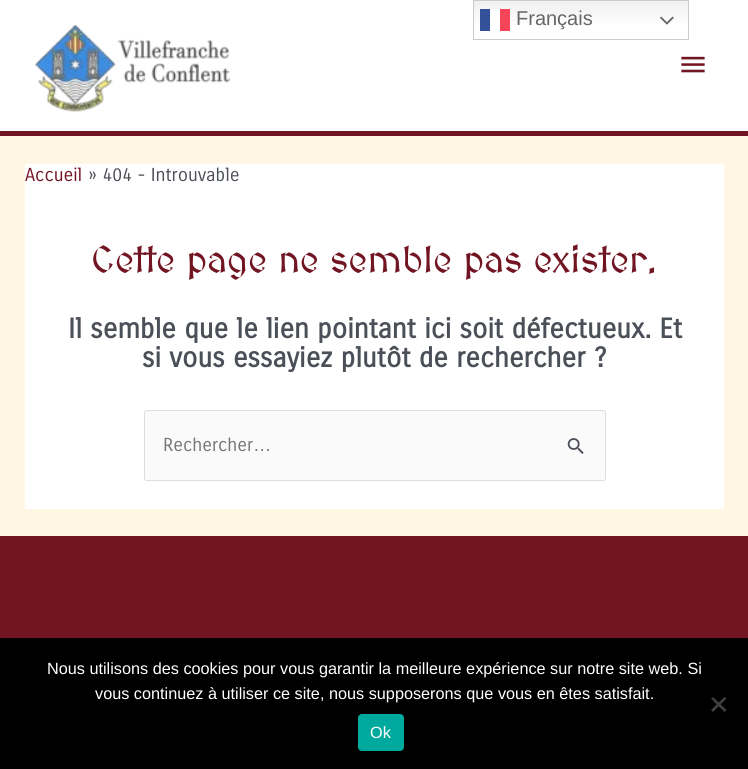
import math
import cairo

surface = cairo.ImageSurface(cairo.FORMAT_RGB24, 748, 769)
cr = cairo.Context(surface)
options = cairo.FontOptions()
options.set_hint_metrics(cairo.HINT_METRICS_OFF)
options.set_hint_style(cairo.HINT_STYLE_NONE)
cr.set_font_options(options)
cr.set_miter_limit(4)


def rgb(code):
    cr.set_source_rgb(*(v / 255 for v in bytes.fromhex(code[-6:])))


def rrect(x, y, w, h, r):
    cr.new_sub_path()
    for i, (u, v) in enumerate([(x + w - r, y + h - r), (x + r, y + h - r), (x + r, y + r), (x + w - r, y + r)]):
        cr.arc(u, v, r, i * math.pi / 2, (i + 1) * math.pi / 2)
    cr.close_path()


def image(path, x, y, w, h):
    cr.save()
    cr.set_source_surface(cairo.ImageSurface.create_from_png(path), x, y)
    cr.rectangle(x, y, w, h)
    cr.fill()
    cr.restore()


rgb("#fff6e4")
cr.paint()
rgb("#ffffff")
cr.rectangle(0, 0, 748, 131)
cr.fill()
gradient = cairo.LinearGradient(581, 0, 581, 40)
gradient.add_color_stop_rgba(0, 0.937, 0.937, 0.937, 1)
gradient.add_color_stop_rgba(0.7, 1, 1, 1, 1)
cr.set_source(gradient)
cr.rectangle(474, 1, 214, 23)
cr.fill()
gradient = cairo.LinearGradient(581, 0, 581, 40)
gradient.add_color_stop_rgba(0, 0.988, 0.988, 0.988, 1)
gradient.add_color_stop_rgba(0.7, 1, 1, 1, 1)
cr.set_source(gradient)
cr.rectangle(490, 9, 10, 15)
cr.fill()
cr.rectangle(473.5, 0.5, 215, 39)
rgb("#cccccc")
cr.set_line_width(1)
cr.stroke()
rgb("#335198")
cr.rectangle(480, 9, 10, 22)
cr.fill()
rgb("#f54659")
cr.rectangle(500, 9, 10, 22)
cr.fill()
image("img/1.png", 660, 16, 14, 9)
rgb("#721523")
cr.rectangle(0, 131, 748, 5)
cr.fill()
image("img/2.png", 34, 24, 197, 88)
image("img/3.png", 681, 56, 24, 17)
rgb("#ffffff")
cr.rectangle(25, 164, 699, 345)
cr.fill()
rgb("#fafafa")
rrect(144.5, 410.5, 461, 70, 2)
cr.fill_preserve()
rgb("#dddddd")
cr.stroke()
image("img/4.png", 567, 438, 17, 16)
rgb("#721523")
cr.rectangle(0, 536, 748, 102)
cr.fill()
rgb("#000000")
cr.rectangle(0, 638, 748, 131)
cr.fill()
rgb("#404040")
cr.new_path()
cr.move_to(724.5, 697)
cr.line_to(726.5, 698.5)
cr.line_to(713, 712)
cr.line_to(711, 710)
cr.close_path()
cr.fill()
cr.new_path()
cr.move_to(711, 698.5)
cr.line_to(713, 697)
cr.line_to(726.5, 710)
cr.line_to(724.5, 712)
cr.close_path()
cr.fill()
rgb("#00a99d")
rrect(358, 714, 46, 37, 4)
cr.fill()
cr.select_font_face("Liberation Sans")
cr.set_font_size(20)
rgb("#666666")
cr.move_to(516, 25)
cr.show_text("Français")
cr.select_font_face("Carrois Gothic")
cr.set_font_size(18.25)
rgb("#721523")
cr.move_to(25, 181)
cr.show_text("Accueil")
rgb("#4b4f58")
cr.move_to(88, 181)
cr.show_text("» 404 - Introuvable")
cr.select_font_face("MedievalSharp Medium")
cr.set_font_size(37.5)
rgb("#721523")
cr.move_to(91, 273)
cr.show_text("Cette page ne semble pas exister.")
cr.select_font_face("Carrois Gothic", cairo.FONT_SLANT_NORMAL, cairo.FONT_WEIGHT_BOLD)
cr.set_font_size(27.4)
rgb("#4b4f58")
cr.move_to(68, 338)
cr.show_text("Il semble que le lien pointant ici soit défectueux. Et")
cr.move_to(142, 367)
cr.show_text("si vous essayiez plutôt de rechercher ?")
cr.select_font_face("Carrois Gothic")
cr.set_font_size(18.25)
rgb("#757575")
cr.move_to(163, 451)
cr.show_text("Rechercher")
cr.select_font_face("Liberation Sans")
cr.move_to(253, 451)
cr.show_text("…")
cr.set_font_size(16.25)
rgb("#ffffff")
for x, y, s in [
    (47, 674, "Nous utilisons des cookies pour vous garantir la meilleure expérience sur notre site web. Si"),
    (95, 699, "vous continuez à utiliser ce site, nous supposerons que vous en êtes satisfait."),
    (370, 738, "Ok"),
]:
    cr.move_to(x, y)
    cr.show_text(s)
surface.write_to_png("page.png")
